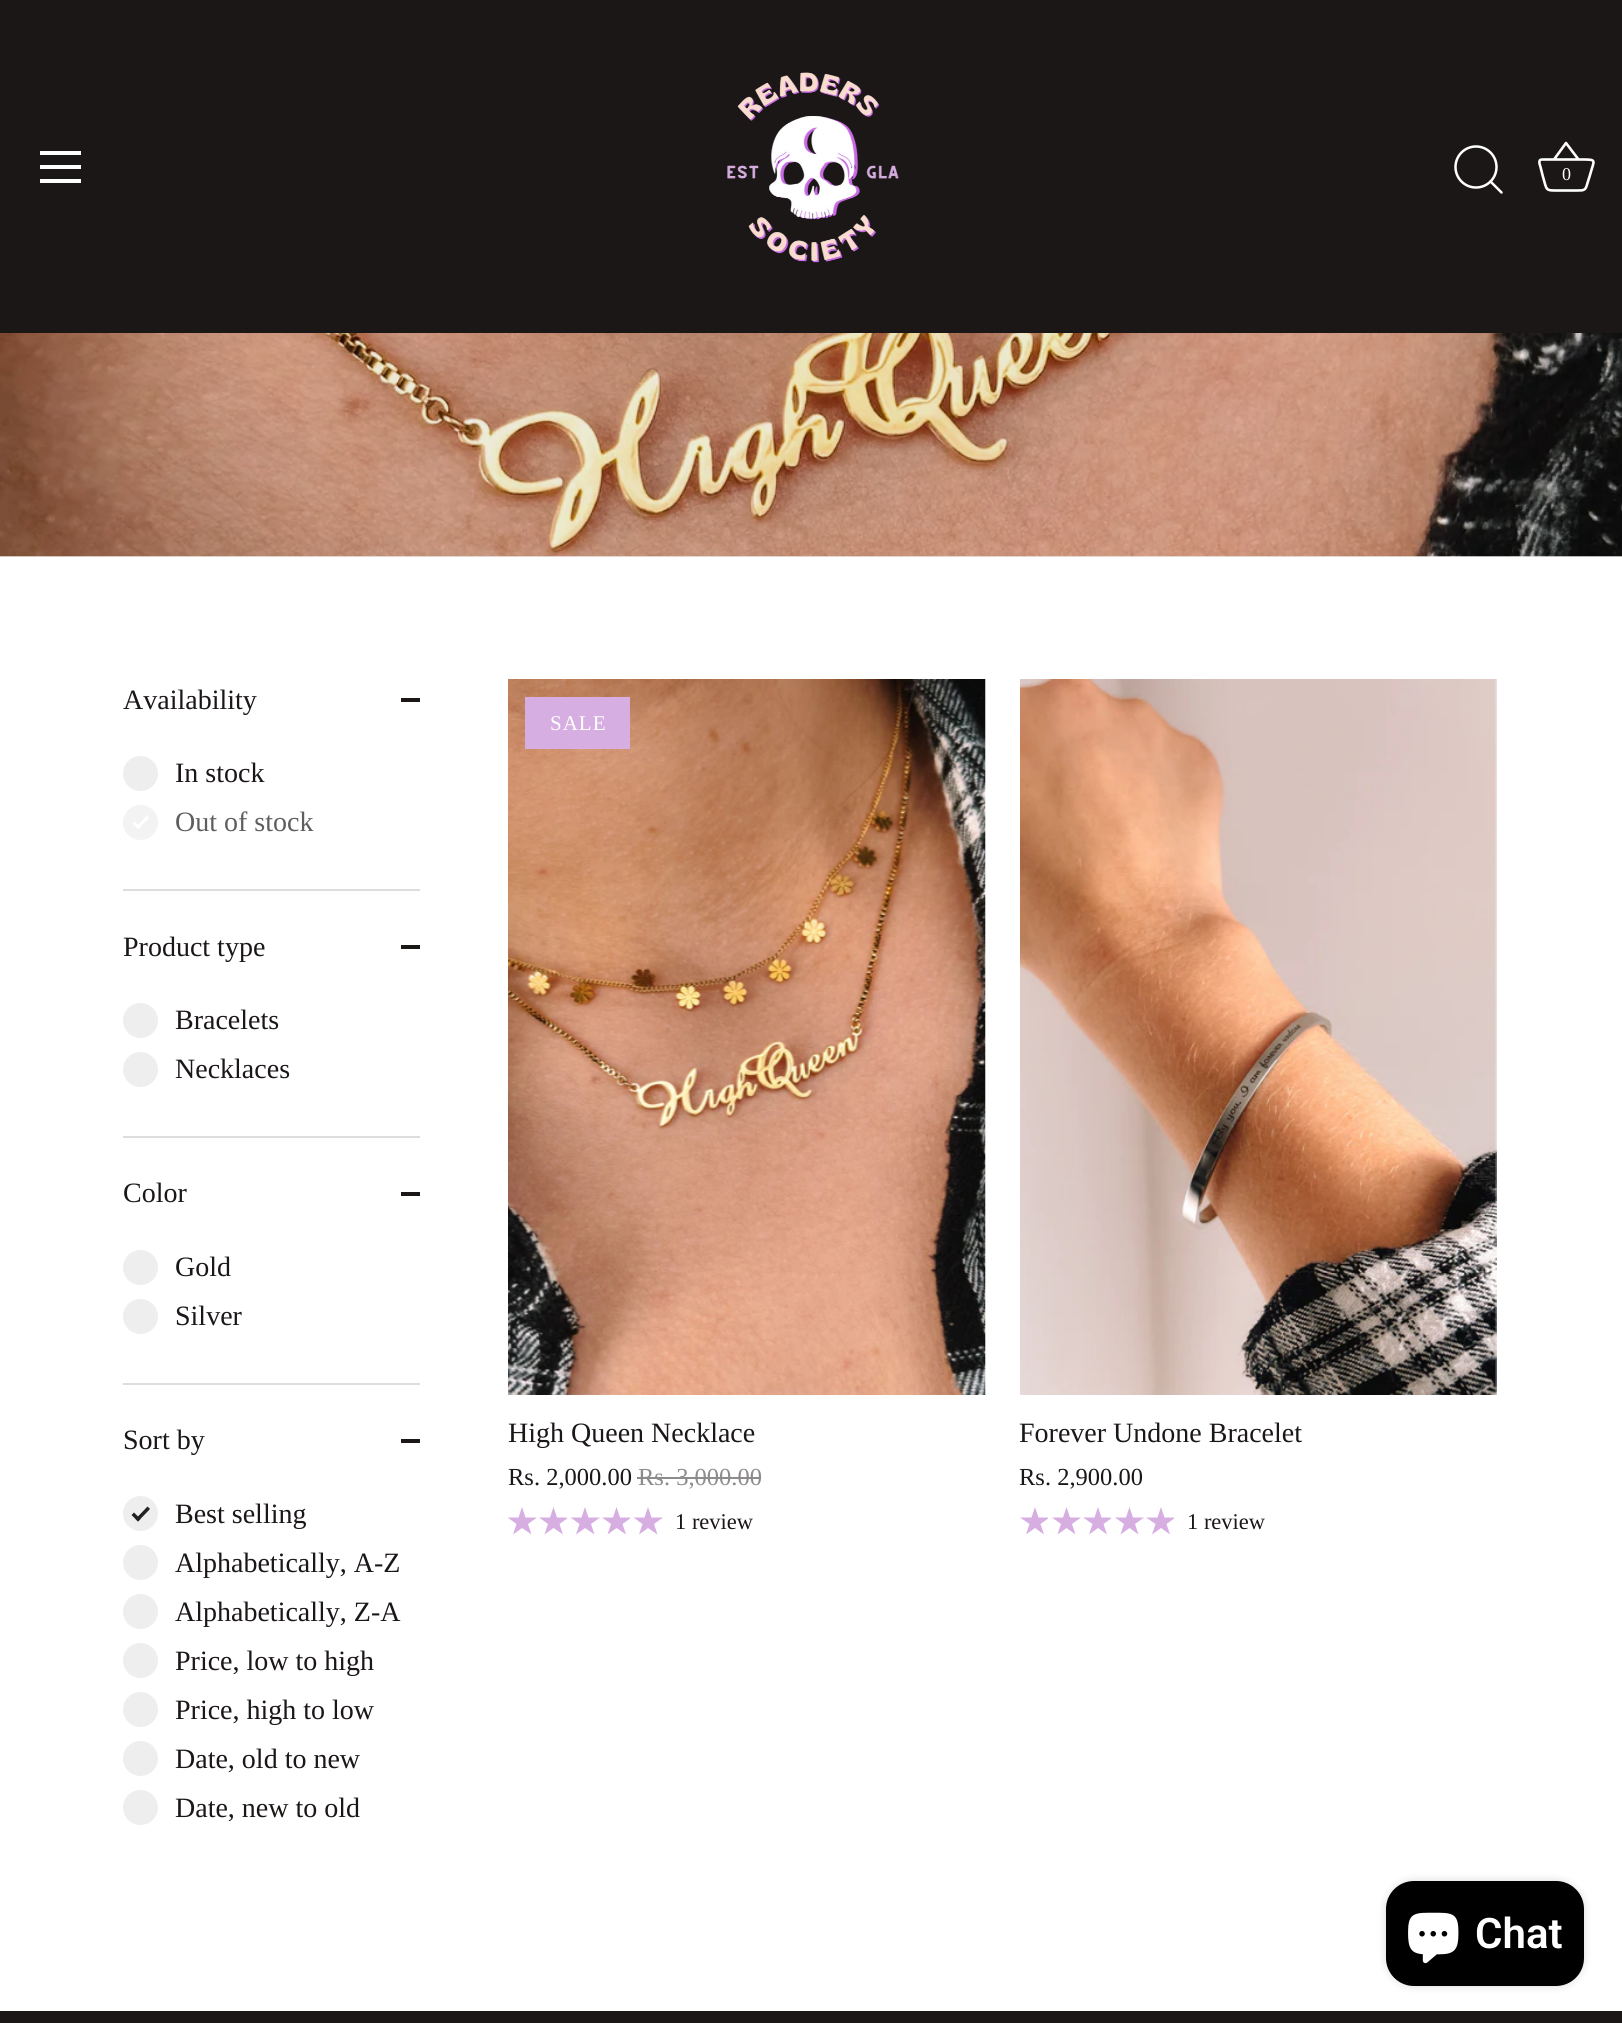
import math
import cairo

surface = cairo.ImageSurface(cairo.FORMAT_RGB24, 1622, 2023)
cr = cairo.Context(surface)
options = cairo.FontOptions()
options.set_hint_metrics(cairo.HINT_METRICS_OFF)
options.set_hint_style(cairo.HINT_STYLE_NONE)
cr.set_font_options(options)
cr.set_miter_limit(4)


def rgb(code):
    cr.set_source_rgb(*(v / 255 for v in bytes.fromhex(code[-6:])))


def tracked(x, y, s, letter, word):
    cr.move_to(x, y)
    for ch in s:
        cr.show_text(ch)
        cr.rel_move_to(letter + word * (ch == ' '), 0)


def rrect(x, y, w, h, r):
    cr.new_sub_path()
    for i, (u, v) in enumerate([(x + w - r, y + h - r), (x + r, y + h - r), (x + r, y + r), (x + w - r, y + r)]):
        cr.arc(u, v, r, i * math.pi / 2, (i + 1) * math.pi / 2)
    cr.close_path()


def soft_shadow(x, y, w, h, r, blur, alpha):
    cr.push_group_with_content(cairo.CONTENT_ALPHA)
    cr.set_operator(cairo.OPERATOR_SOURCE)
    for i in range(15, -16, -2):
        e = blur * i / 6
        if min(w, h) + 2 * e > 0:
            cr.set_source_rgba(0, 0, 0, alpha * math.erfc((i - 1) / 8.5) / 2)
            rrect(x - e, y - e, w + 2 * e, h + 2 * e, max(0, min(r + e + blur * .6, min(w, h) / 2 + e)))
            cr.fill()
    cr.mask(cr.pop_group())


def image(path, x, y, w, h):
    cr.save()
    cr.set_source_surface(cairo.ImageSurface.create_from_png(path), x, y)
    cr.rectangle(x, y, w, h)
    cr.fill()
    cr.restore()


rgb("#ffffff")
cr.paint()
for x, y, w, h, color in [
    (0, 556, 1622, 1, "#edecec"),
    (0, 0, 1622, 333, "#1b1717"),
    (40, 151, 41, 4, "#ffffff"),
    (40, 165, 41, 4, "#ffffff"),
    (40, 179, 41, 4, "#ffffff"),
]:
    rgb(color)
    cr.rectangle(x, y, w, h)
    cr.fill()
image("img/1.png", 727, 72, 172, 191)
cr.arc(1476, 167, 20.5, 0, 2 * math.pi)
cr.set_line_width(2.5)
cr.stroke()
cr.new_path()
cr.move_to(1501.5, 192.5)
cr.line_to(1490.5, 181.5)
cr.set_line_cap(cairo.LINE_CAP_ROUND)
cr.set_line_join(cairo.LINE_JOIN_ROUND)
cr.stroke()
cr.new_path()
cr.move_to(1542, 159.5)
cr.curve_to(1537.5, 159.5, 1540, 165, 1540.5, 167)
cr.line_to(1542.5, 175)
cr.curve_to(1547.5, 191.5, 1544, 190.5, 1561, 190.5)
cr.line_to(1576.5, 190.5)
cr.curve_to(1584.5, 190.5, 1585.5, 190.5, 1587.5, 183)
cr.line_to(1590, 175)
cr.curve_to(1594, 160, 1597.5, 159.5, 1582.5, 159.5)
cr.line_to(1542, 159.5)
cr.move_to(1554, 159.5)
cr.line_to(1566, 143)
cr.line_to(1578.5, 159.5)
cr.set_line_width(2.6)
cr.set_line_cap(cairo.LINE_CAP_BUTT)
cr.stroke()
image("img/2.png", 0, 333, 1622, 224)
rgb("#dddddd")
cr.rectangle(123, 889, 297, 2)
cr.fill()
rgb("#1b1717")
cr.rectangle(401, 698, 19, 4)
cr.fill()
rgb("#eeeeee")
cr.arc(140.5, 773.5, 17.5, 0, 2 * math.pi)
cr.fill()
rgb("#f3f3f3")
cr.arc(140.5, 822.5, 17.5, 0, 2 * math.pi)
cr.fill()
rgb("#ffffff")
cr.new_path()
cr.move_to(147, 815.5)
cr.line_to(149, 818)
cr.line_to(138, 829)
cr.line_to(136, 827)
cr.close_path()
cr.fill()
cr.new_path()
cr.move_to(134.5, 821.5)
cr.line_to(140.5, 827)
cr.line_to(138, 829)
cr.line_to(132.5, 823.5)
cr.close_path()
cr.fill()
rgb("#dddddd")
cr.rectangle(123, 1136, 297, 2)
cr.fill()
rgb("#1b1717")
cr.rectangle(401, 945, 19, 4)
cr.fill()
rgb("#eeeeee")
cr.arc(140.5, 1020.5, 17.5, 0, 2 * math.pi)
cr.fill()
cr.arc(140.5, 1069.5, 17.5, 0, 2 * math.pi)
cr.fill()
rgb("#dddddd")
cr.rectangle(123, 1383, 297, 2)
cr.fill()
rgb("#1b1717")
cr.rectangle(401, 1192, 19, 4)
cr.fill()
rgb("#eeeeee")
cr.arc(140.5, 1267.5, 17.5, 0, 2 * math.pi)
cr.fill()
cr.arc(140.5, 1316.5, 17.5, 0, 2 * math.pi)
cr.fill()
rgb("#1b1717")
cr.rectangle(401, 1439, 19, 4)
cr.fill()
rgb("#eeeeee")
cr.arc(140.5, 1513.5, 17.5, 0, 2 * math.pi)
cr.fill()
rgb("#222222")
cr.new_path()
cr.move_to(147.5, 1506.5)
cr.line_to(150, 1509)
cr.line_to(138, 1521.5)
cr.line_to(135.5, 1519)
cr.close_path()
cr.fill()
cr.new_path()
cr.move_to(134, 1512.5)
cr.line_to(140.5, 1519)
cr.line_to(138, 1521.5)
cr.line_to(131.5, 1515)
cr.close_path()
cr.fill()
rgb("#eeeeee")
cr.arc(140.5, 1562.5, 17.5, 0, 2 * math.pi)
cr.fill()
cr.arc(140.5, 1611.5, 17.5, 0, 2 * math.pi)
cr.fill()
cr.arc(140.5, 1660.5, 17.5, 0, 2 * math.pi)
cr.fill()
cr.arc(140.5, 1709.5, 17.5, 0, 2 * math.pi)
cr.fill()
cr.arc(140.5, 1758.5, 17.5, 0, 2 * math.pi)
cr.fill()
cr.arc(140.5, 1807.5, 17.5, 0, 2 * math.pi)
cr.fill()
image("img/3.png", 508, 679, 478, 716)
rgb("#d6aee1")
cr.rectangle(525, 697, 105, 52)
cr.fill()
rgb("#8d8b8b")
cr.rectangle(637, 1477, 124, 2)
cr.fill()
rgb("#d6aee1")
cr.set_fill_rule(cairo.FILL_RULE_EVEN_ODD)
cr.new_path()
cr.move_to(525.5, 1517.5)
cr.line_to(537, 1517.5)
cr.line_to(528, 1524)
cr.line_to(531.5, 1534.5)
cr.line_to(522, 1528)
cr.line_to(513, 1534.5)
cr.line_to(516.5, 1524)
cr.line_to(507.5, 1517.5)
cr.line_to(518.5, 1517.5)
cr.line_to(522, 1507)
cr.close_path()
cr.fill()
cr.save()
cr.set_fill_rule(cairo.FILL_RULE_WINDING)
cr.rectangle(539, 1507, 28, 28)
cr.clip()
cr.set_fill_rule(cairo.FILL_RULE_EVEN_ODD)
cr.new_path()
cr.move_to(557, 1517.5)
cr.line_to(568.5, 1517.5)
cr.line_to(559.5, 1524)
cr.line_to(563, 1534.5)
cr.line_to(553.5, 1528)
cr.line_to(544.5, 1534.5)
cr.line_to(548, 1524)
cr.line_to(539, 1517.5)
cr.line_to(550, 1517.5)
cr.line_to(553.5, 1507)
cr.close_path()
cr.fill()
cr.restore()
cr.new_path()
cr.move_to(588.5, 1517.5)
cr.line_to(600, 1517.5)
cr.line_to(591, 1524)
cr.line_to(594.5, 1534.5)
cr.line_to(585, 1528)
cr.line_to(576, 1534.5)
cr.line_to(579.5, 1524)
cr.line_to(570.5, 1517.5)
cr.line_to(581.5, 1517.5)
cr.line_to(585, 1507)
cr.close_path()
cr.fill()
cr.save()
cr.set_fill_rule(cairo.FILL_RULE_WINDING)
cr.rectangle(602, 1507, 28, 28)
cr.clip()
cr.set_fill_rule(cairo.FILL_RULE_EVEN_ODD)
cr.new_path()
cr.move_to(620, 1517.5)
cr.line_to(631.5, 1517.5)
cr.line_to(622.5, 1524)
cr.line_to(626, 1534.5)
cr.line_to(616.5, 1528)
cr.line_to(607.5, 1534.5)
cr.line_to(611, 1524)
cr.line_to(602, 1517.5)
cr.line_to(613, 1517.5)
cr.line_to(616.5, 1507)
cr.close_path()
cr.fill()
cr.restore()
cr.new_path()
cr.move_to(651.5, 1517.5)
cr.line_to(663, 1517.5)
cr.line_to(654, 1524)
cr.line_to(657.5, 1534.5)
cr.line_to(648, 1528)
cr.line_to(639, 1534.5)
cr.line_to(642.5, 1524)
cr.line_to(633.5, 1517.5)
cr.line_to(644.5, 1517.5)
cr.line_to(648, 1507)
cr.close_path()
cr.fill()
image("img/4.png", 1020, 679, 477, 716)
cr.save()
cr.set_fill_rule(cairo.FILL_RULE_WINDING)
cr.rectangle(1020, 1507, 28, 28)
cr.clip()
cr.set_fill_rule(cairo.FILL_RULE_EVEN_ODD)
cr.new_path()
cr.move_to(1038.5, 1517.5)
cr.line_to(1049.5, 1517.5)
cr.line_to(1040.5, 1524)
cr.line_to(1044, 1534.5)
cr.line_to(1035, 1528)
cr.line_to(1026, 1534.5)
cr.line_to(1029.5, 1524)
cr.line_to(1020, 1517.5)
cr.line_to(1031.5, 1517.5)
cr.line_to(1035, 1507)
cr.close_path()
cr.fill()
cr.restore()
cr.new_path()
cr.move_to(1070, 1517.5)
cr.line_to(1081, 1517.5)
cr.line_to(1072, 1524)
cr.line_to(1075.5, 1534.5)
cr.line_to(1066.5, 1528)
cr.line_to(1057.5, 1534.5)
cr.line_to(1061, 1524)
cr.line_to(1052, 1517.5)
cr.line_to(1063, 1517.5)
cr.line_to(1066.5, 1507)
cr.close_path()
cr.fill()
cr.save()
cr.set_fill_rule(cairo.FILL_RULE_WINDING)
cr.rectangle(1083, 1507, 28, 28)
cr.clip()
cr.set_fill_rule(cairo.FILL_RULE_EVEN_ODD)
cr.new_path()
cr.move_to(1101.5, 1517.5)
cr.line_to(1112.5, 1517.5)
cr.line_to(1103.5, 1524)
cr.line_to(1107, 1534.5)
cr.line_to(1098, 1528)
cr.line_to(1089, 1534.5)
cr.line_to(1092.5, 1524)
cr.line_to(1083, 1517.5)
cr.line_to(1094.5, 1517.5)
cr.line_to(1098, 1507)
cr.close_path()
cr.fill()
cr.restore()
cr.new_path()
cr.move_to(1133, 1517.5)
cr.line_to(1144, 1517.5)
cr.line_to(1135, 1524)
cr.line_to(1138.5, 1534.5)
cr.line_to(1129.5, 1528)
cr.line_to(1120.5, 1534.5)
cr.line_to(1124, 1524)
cr.line_to(1115, 1517.5)
cr.line_to(1126, 1517.5)
cr.line_to(1129.5, 1507)
cr.close_path()
cr.fill()
cr.save()
cr.set_fill_rule(cairo.FILL_RULE_WINDING)
cr.rectangle(1146, 1507, 28, 28)
cr.clip()
cr.set_fill_rule(cairo.FILL_RULE_EVEN_ODD)
cr.new_path()
cr.move_to(1164.5, 1517.5)
cr.line_to(1175.5, 1517.5)
cr.line_to(1166.5, 1524)
cr.line_to(1170, 1534.5)
cr.line_to(1161, 1528)
cr.line_to(1152, 1534.5)
cr.line_to(1155.5, 1524)
cr.line_to(1146, 1517.5)
cr.line_to(1157.5, 1517.5)
cr.line_to(1161, 1507)
cr.close_path()
cr.fill()
cr.restore()
rgb("#000000")
soft_shadow(1386, 1881, 198, 105, 28, 4.5, 0.15)
rgb("#000000")
rrect(1386, 1881, 198, 105, 28)
cr.fill()
image("img/5.png", 1408, 1912, 51, 52)
rgb("#1b1717")
cr.rectangle(0, 2011, 1622, 12)
cr.fill()
cr.select_font_face("Liberation Serif")
cr.set_font_size(18)
rgb("#ffffff")
cr.move_to(1562, 180)
cr.show_text("0")
cr.set_font_size(28)
rgb("#1b1717")
cr.move_to(123, 709)
cr.show_text("Availability")
cr.move_to(175, 782)
cr.show_text("In stock")
rgb("#5f5d5d")
cr.move_to(175, 831)
cr.show_text("Out of stock")
rgb("#1b1717")
for x, y, s in [
    (123, 956, "Product type"),
    (175, 1029, "Bracelets"),
    (175, 1078, "Necklaces"),
    (123, 1202, "Color"),
    (175, 1276, "Gold"),
    (175, 1325, "Silver"),
    (123, 1449, "Sort by"),
    (175, 1523, "Best selling"),
    (175, 1572, "Alphabetically, A-Z"),
    (175, 1621, "Alphabetically, Z-A"),
    (175, 1670, "Price, low to high"),
    (175, 1719, "Price, high to low"),
    (175, 1768, "Date, old to new"),
    (175, 1817, "Date, new to old"),
]:
    cr.move_to(x, y)
    cr.show_text(s)
cr.set_font_size(21)
rgb("#ffffff")
tracked(550, 730, "SALE", 1, 0)
cr.set_font_size(28)
rgb("#1b1717")
cr.move_to(508, 1442)
cr.show_text("High Queen Necklace")
cr.set_font_size(24.5)
cr.move_to(508, 1485)
cr.show_text("Rs. 2,000.00")
rgb("#8d8b8b")
cr.move_to(638, 1485)
cr.show_text("Rs. 3,000.00")
cr.set_font_size(22.5)
rgb("#1b1717")
cr.move_to(675, 1529)
cr.show_text("1 review")
cr.set_font_size(28)
cr.move_to(1019, 1442)
cr.show_text("Forever Undone Bracelet")
cr.set_font_size(24.5)
cr.move_to(1019, 1485)
cr.show_text("Rs. 2,900.00")
cr.set_font_size(22.5)
cr.move_to(1187, 1529)
cr.show_text("1 review")
cr.select_font_face("Roboto SemiBold")
cr.set_font_size(42)
rgb("#ffffff")
cr.move_to(1475, 1948)
cr.show_text("Chat")
surface.write_to_png("page.png")
